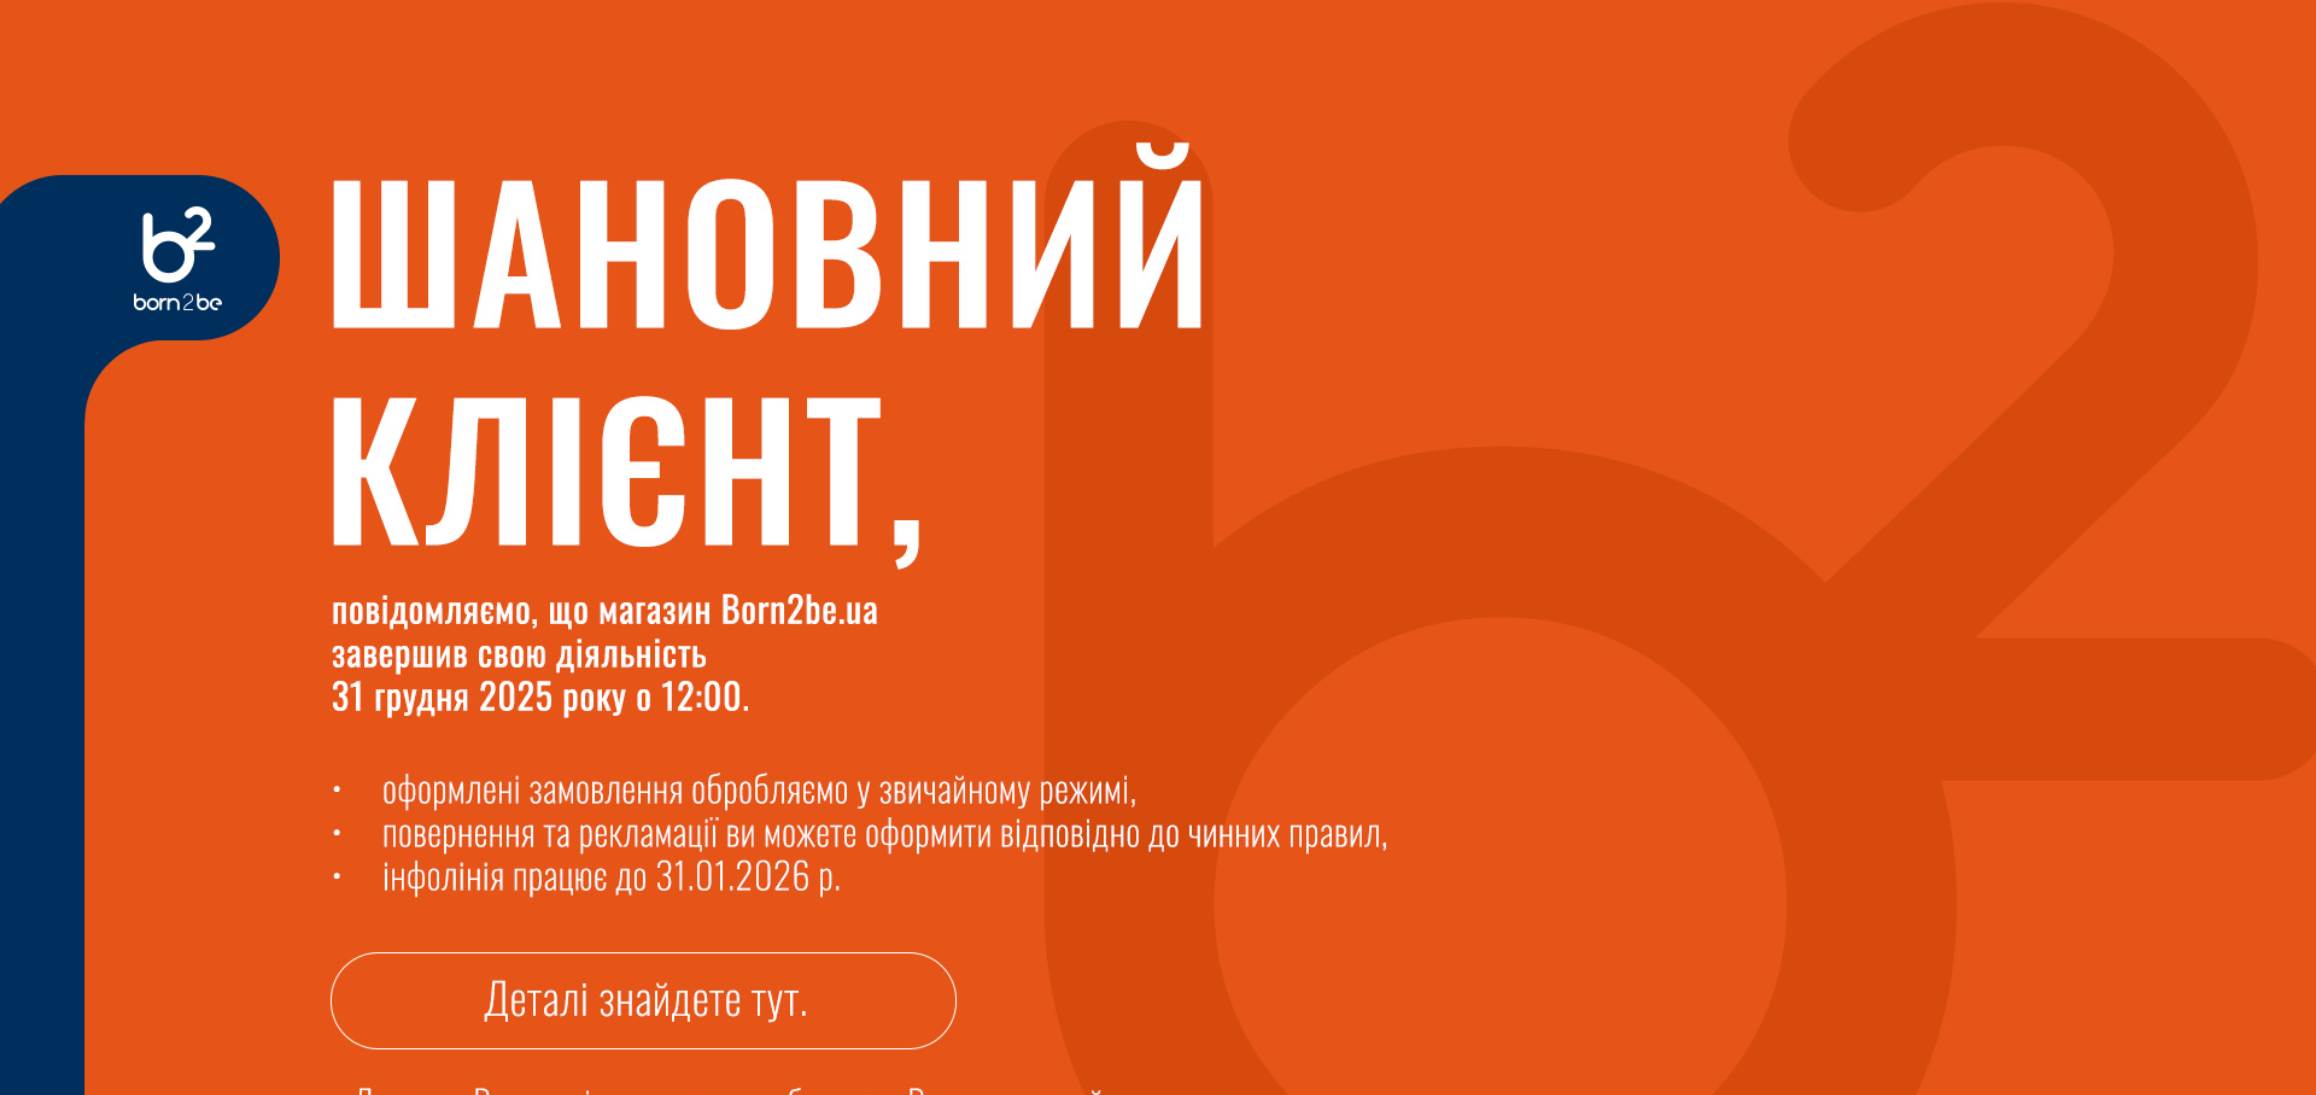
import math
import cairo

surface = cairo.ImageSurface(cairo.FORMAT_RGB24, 2316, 1095)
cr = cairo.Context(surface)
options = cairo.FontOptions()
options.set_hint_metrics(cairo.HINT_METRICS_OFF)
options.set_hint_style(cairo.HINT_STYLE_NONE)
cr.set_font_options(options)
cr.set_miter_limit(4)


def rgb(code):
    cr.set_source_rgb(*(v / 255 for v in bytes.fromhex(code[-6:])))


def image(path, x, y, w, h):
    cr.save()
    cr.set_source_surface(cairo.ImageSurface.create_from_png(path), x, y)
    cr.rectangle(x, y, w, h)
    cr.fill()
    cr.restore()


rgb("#ffffff")
cr.paint()
image("img/1.png", 0, 0, 2316, 927)
image("img/2.png", 0, 927, 2316, 168)
surface.write_to_png("page.png")
